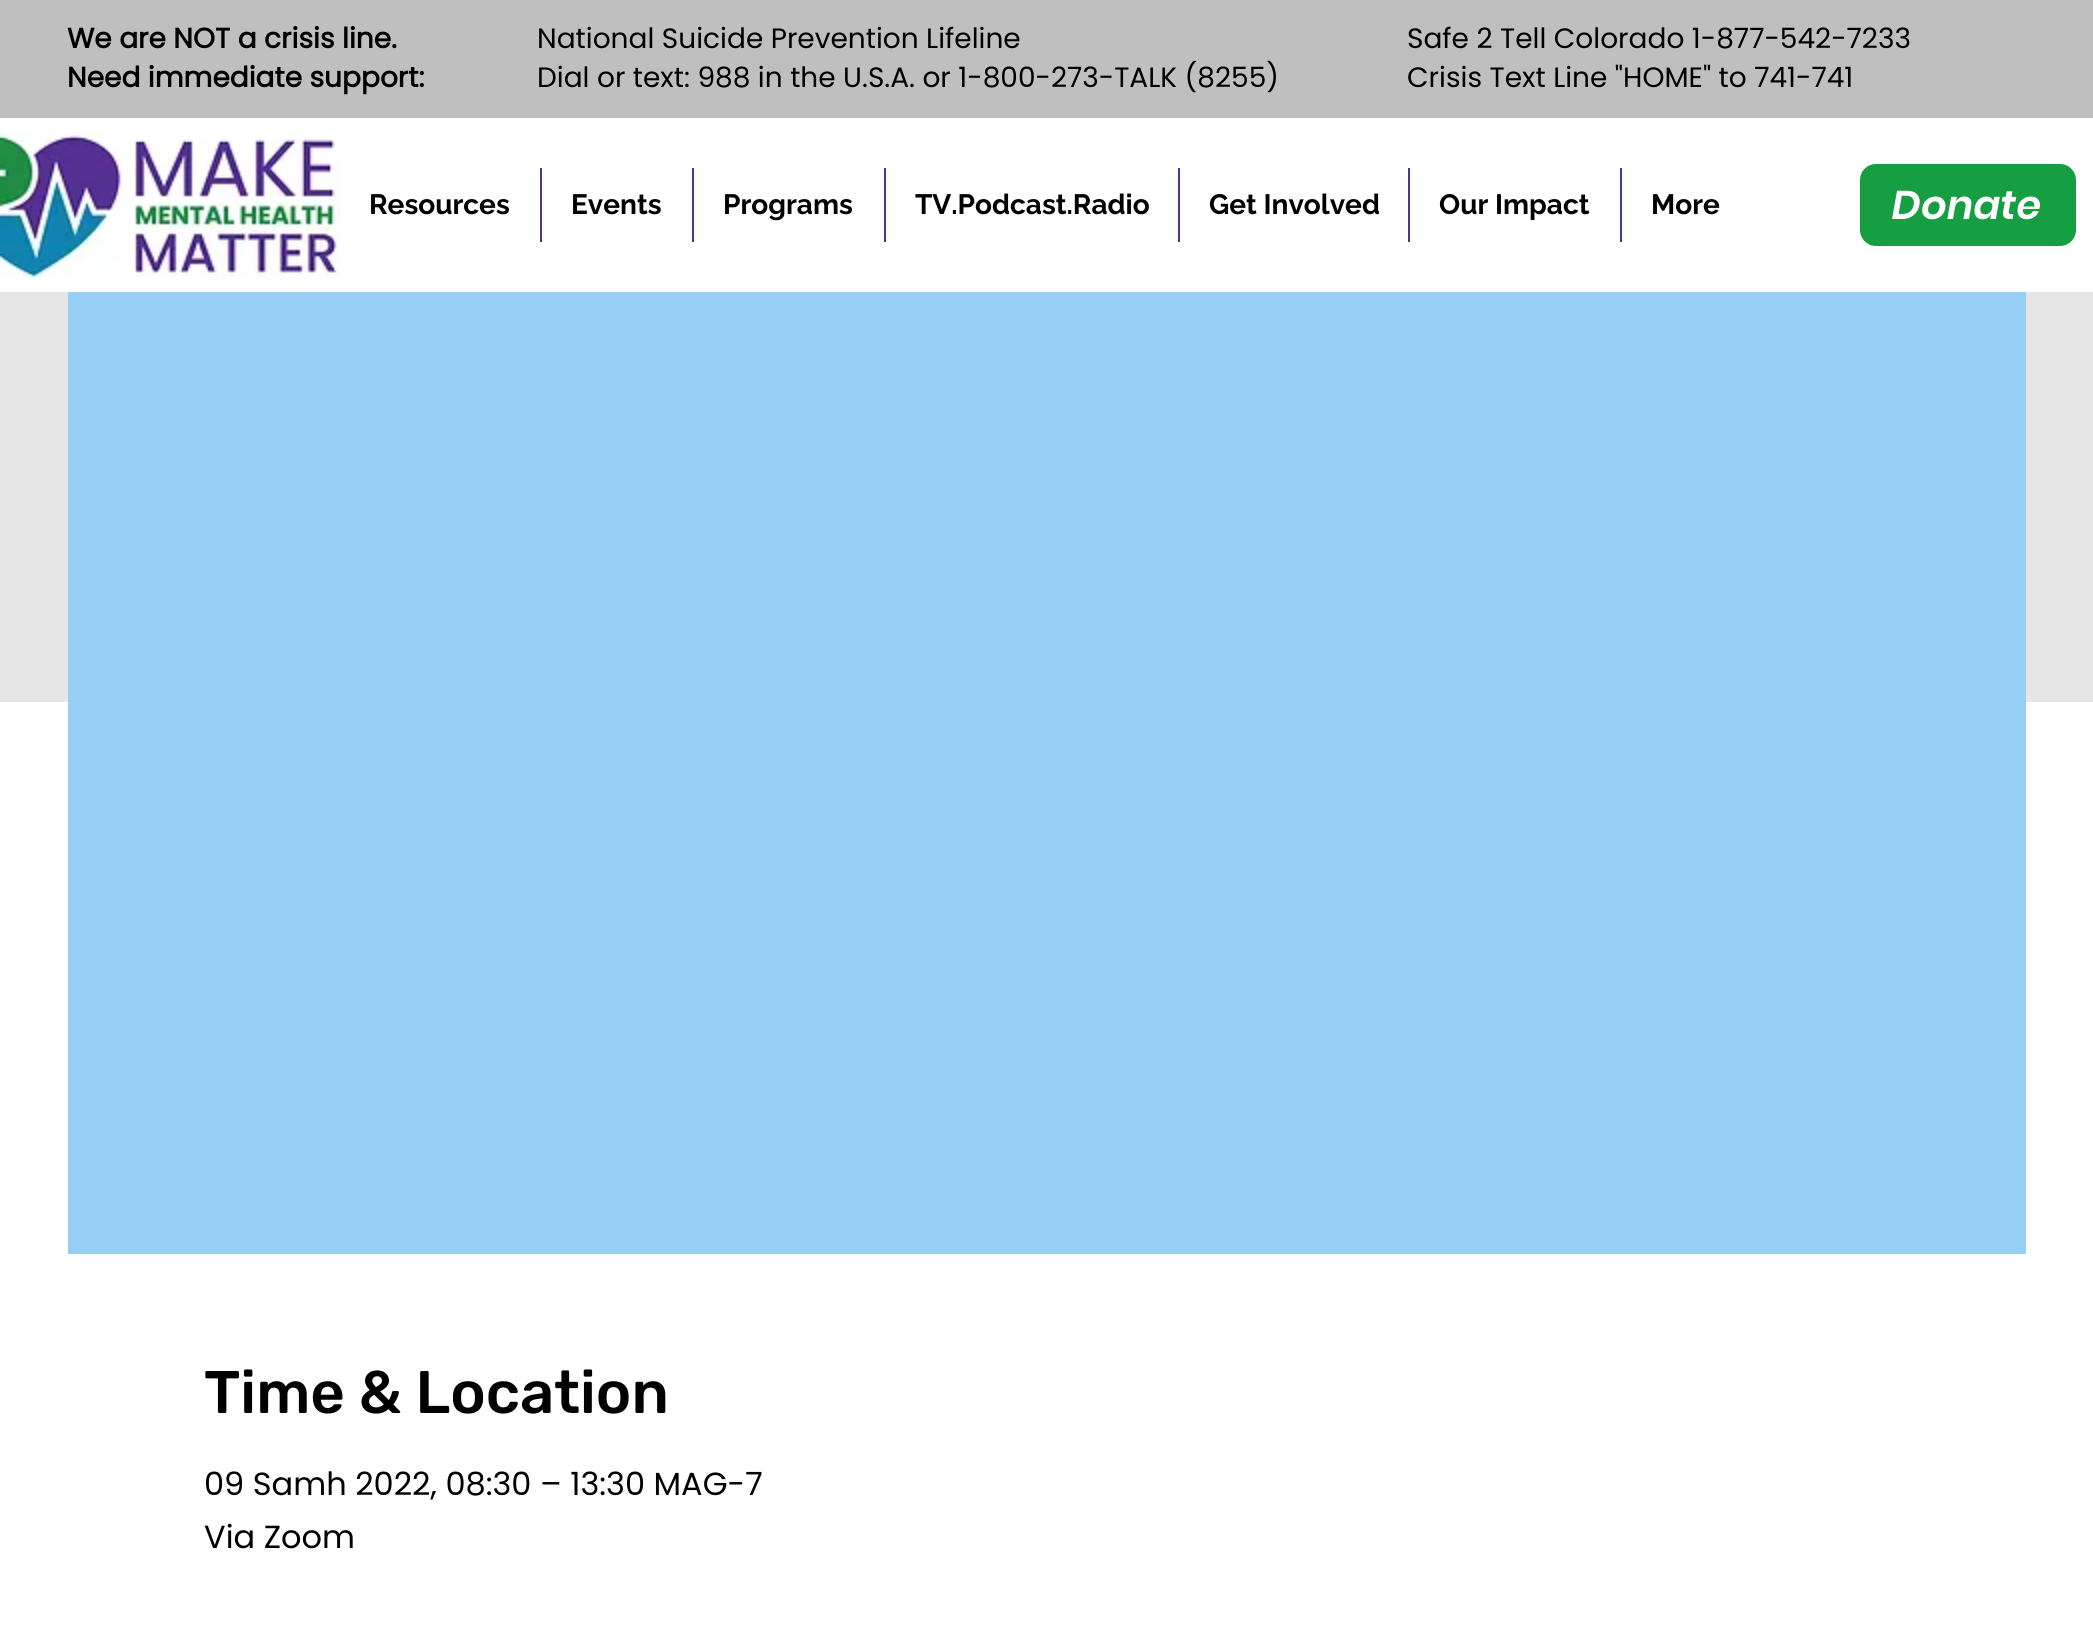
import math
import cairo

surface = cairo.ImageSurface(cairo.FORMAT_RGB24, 2093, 1645)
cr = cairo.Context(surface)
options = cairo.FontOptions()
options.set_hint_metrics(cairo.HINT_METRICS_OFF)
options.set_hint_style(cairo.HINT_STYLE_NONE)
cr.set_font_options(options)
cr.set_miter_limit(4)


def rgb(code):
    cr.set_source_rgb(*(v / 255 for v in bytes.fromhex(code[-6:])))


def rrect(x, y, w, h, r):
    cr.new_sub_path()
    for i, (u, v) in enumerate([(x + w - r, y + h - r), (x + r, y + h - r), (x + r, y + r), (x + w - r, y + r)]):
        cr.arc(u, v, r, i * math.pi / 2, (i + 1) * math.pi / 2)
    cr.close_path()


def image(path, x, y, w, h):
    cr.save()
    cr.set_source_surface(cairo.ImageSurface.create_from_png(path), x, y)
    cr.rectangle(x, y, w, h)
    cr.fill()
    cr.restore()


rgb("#ffffff")
cr.paint()
rgb("#bfbfbf")
cr.rectangle(0, 0, 2093, 118)
cr.fill()
image("img/1.png", 0, 132, 340, 147)
for x, y, w, h, color in [
    (540, 168, 2, 74, "#552f92"),
    (692, 168, 2, 74, "#552f92"),
    (884, 168, 2, 74, "#552f92"),
    (1178, 168, 2, 74, "#552f92"),
    (1408, 168, 2, 74, "#552f92"),
    (1620, 168, 2, 74, "#552f92"),
]:
    rgb(color)
    cr.rectangle(x, y, w, h)
    cr.fill()
rgb("#159e42")
rrect(1860, 164, 216, 82, 16)
cr.fill()
rgb("#e6e6e6")
cr.rectangle(0, 292, 2093, 410)
cr.fill()
rgb("#97cff4")
cr.rectangle(68, 292, 1958, 962)
cr.fill()
cr.select_font_face("Poppins", cairo.FONT_SLANT_NORMAL, cairo.FONT_WEIGHT_BOLD)
cr.set_font_size(28)
rgb("#000000")
cr.move_to(67, 48)
cr.show_text("We are NOT a crisis line.")
cr.move_to(67, 87)
cr.show_text("Need immediate support:")
cr.select_font_face("Poppins")
for x, y, s in [
    (537, 48, "National Suicide Prevention Lifeline"),
    (537, 87, "Dial or text: 988 in the U.S.A. or 1-800-273-TALK (8255)"),
    (1407, 48, "Safe 2 Tell Colorado 1-877-542-7233"),
    (1407, 87, "Crisis Text Line \"HOME\" to 741-741"),
]:
    cr.move_to(x, y)
    cr.show_text(s)
cr.select_font_face("Raleway", cairo.FONT_SLANT_NORMAL, cairo.FONT_WEIGHT_BOLD)
for x, y, s in [
    (369, 214, "Resources"),
    (571, 214, "Events"),
    (723, 214, "Programs"),
    (915, 214, "TV.Podcast.Radio"),
    (1209, 214, "Get Involved"),
    (1439, 214, "Our Impact"),
    (1651, 214, "More"),
]:
    cr.move_to(x, y)
    cr.show_text(s)
cr.select_font_face("Poppins SemiBold", cairo.FONT_SLANT_ITALIC)
cr.set_font_size(40)
rgb("#ffffff")
cr.move_to(1892, 219)
cr.show_text("Donate")
cr.select_font_face("Rubik Medium")
cr.set_font_size(60)
rgb("#000000")
cr.move_to(204, 1413)
cr.show_text("Time & Location")
cr.select_font_face("Poppins")
cr.set_font_size(32)
cr.move_to(204, 1495)
cr.show_text("09 Samh 2022, 08:30 – 13:30 MAG-7")
cr.move_to(204, 1548)
cr.show_text("Via Zoom")
surface.write_to_png("page.png")
